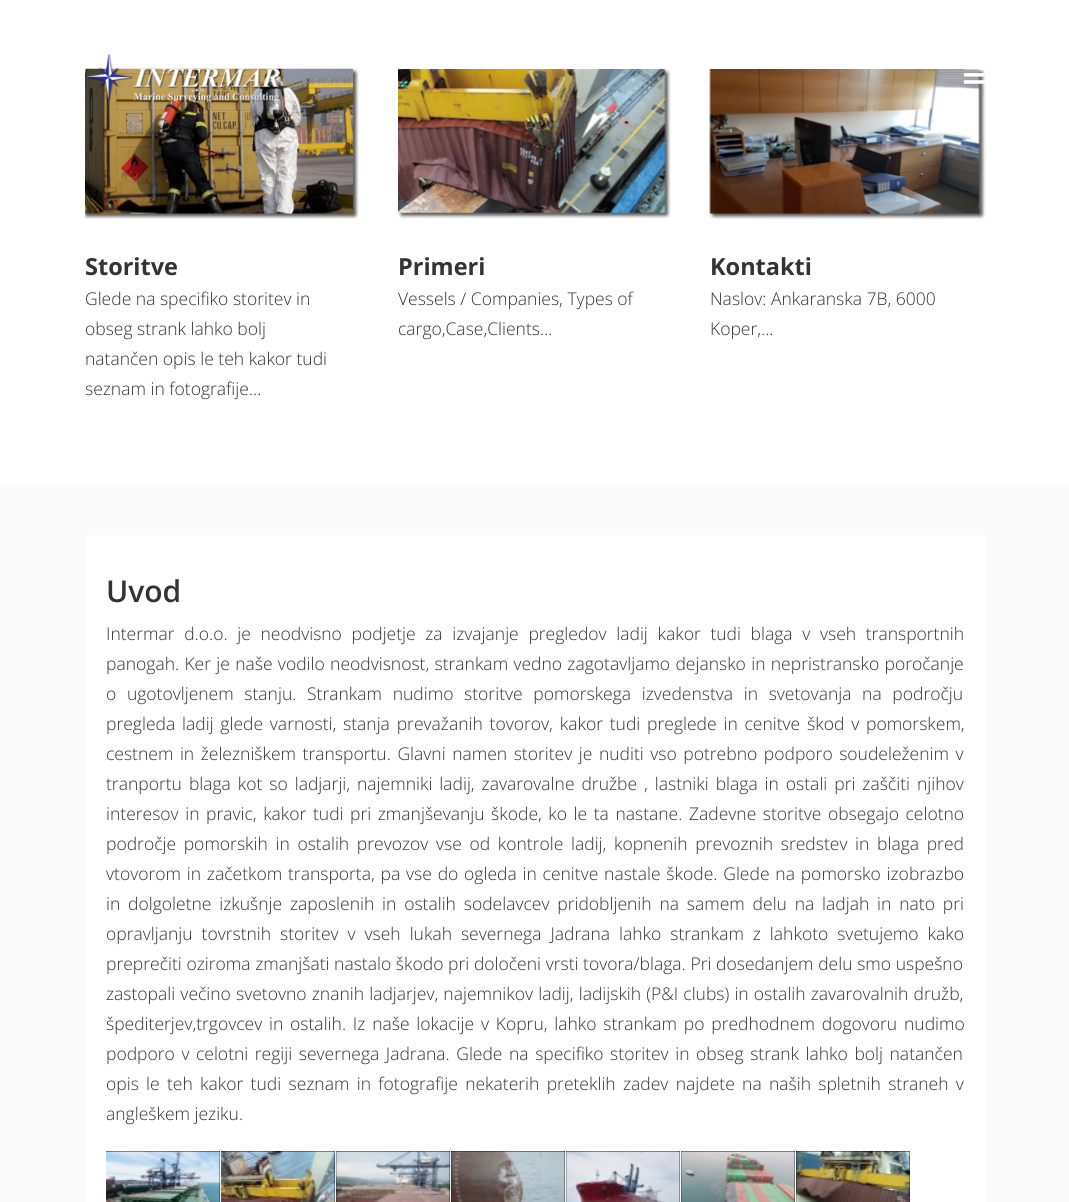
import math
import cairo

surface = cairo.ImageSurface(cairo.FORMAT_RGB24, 1069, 1202)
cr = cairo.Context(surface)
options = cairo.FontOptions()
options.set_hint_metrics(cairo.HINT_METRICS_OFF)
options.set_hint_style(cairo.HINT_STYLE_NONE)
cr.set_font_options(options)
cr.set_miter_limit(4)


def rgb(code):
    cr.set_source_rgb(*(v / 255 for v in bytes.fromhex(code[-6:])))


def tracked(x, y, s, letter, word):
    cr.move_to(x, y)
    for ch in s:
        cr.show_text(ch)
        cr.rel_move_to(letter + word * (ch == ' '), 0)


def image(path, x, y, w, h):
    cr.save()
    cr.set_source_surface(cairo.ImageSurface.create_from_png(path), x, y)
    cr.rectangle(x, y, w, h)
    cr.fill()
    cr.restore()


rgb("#ffffff")
cr.paint()
image("img/3.png", 85, 68, 274, 151)
image("img/1.png", 85, 53, 197, 51)
image("img/5.png", 709, 69, 277, 150)
image("img/2.png", 963, 69, 22, 15)
image("img/4.png", 398, 69, 273, 150)
for x, y, w, h, color in [
    (0, 485, 1069, 717, "#fafafa"),
    (85, 535, 900, 667, "#ffffff"),
    (106, 1151, 114, 51, "#000000"),
]:
    rgb(color)
    cr.rectangle(x, y, w, h)
    cr.fill()
image("img/6.png", 106, 1151, 115, 51)
cr.rectangle(221, 1151, 114, 51)
cr.fill()
image("img/7.png", 221, 1151, 115, 51)
cr.rectangle(336, 1151, 114, 51)
cr.fill()
image("img/8.png", 336, 1151, 115, 51)
cr.rectangle(451, 1151, 114, 51)
cr.fill()
image("img/9.png", 451, 1151, 115, 51)
cr.rectangle(566, 1151, 114, 51)
cr.fill()
image("img/10.png", 566, 1151, 115, 51)
cr.rectangle(681, 1151, 114, 51)
cr.fill()
image("img/11.png", 681, 1151, 114, 51)
cr.rectangle(796, 1151, 114, 51)
cr.fill()
image("img/12.png", 796, 1151, 114, 51)
cr.select_font_face("Open Sans", cairo.FONT_SLANT_NORMAL, cairo.FONT_WEIGHT_BOLD)
cr.set_font_size(23.5)
rgb("#333333")
cr.move_to(85, 275)
cr.show_text("Storitve")
cr.select_font_face("Open Sans Light")
cr.set_font_size(17.5)
for x, y, s in [
    (85, 305, "Glede na specifiko storitev in"),
    (85, 335, "obseg strank lahko bolj"),
    (85, 365, "natančen opis le teh kakor tudi"),
    (85, 395, "seznam in fotografije..."),
]:
    cr.move_to(x, y)
    cr.show_text(s)
cr.select_font_face("Open Sans", cairo.FONT_SLANT_NORMAL, cairo.FONT_WEIGHT_BOLD)
cr.set_font_size(23.5)
cr.move_to(398, 275)
cr.show_text("Primeri")
cr.select_font_face("Open Sans Light")
cr.set_font_size(17.5)
cr.move_to(398, 305)
cr.show_text("Vessels / Companies, Types of")
cr.move_to(398, 335)
cr.show_text("cargo,Case,Clients...")
cr.select_font_face("Open Sans", cairo.FONT_SLANT_NORMAL, cairo.FONT_WEIGHT_BOLD)
cr.set_font_size(23.5)
cr.move_to(710, 275)
cr.show_text("Kontakti")
cr.select_font_face("Open Sans Light")
cr.set_font_size(17.5)
cr.move_to(710, 305)
cr.show_text("Naslov: Ankaranska 7B, 6000")
cr.move_to(710, 335)
cr.show_text("Koper,...")
cr.select_font_face("Open Sans SemiBold")
cr.set_font_size(30)
cr.move_to(106, 602)
cr.show_text("Uvod")
cr.select_font_face("Open Sans Light")
cr.set_font_size(17.5)
tracked(106, 640, "Intermar d.o.o. je neodvisno podjetje za izvajanje pregledov ladij kakor tudi blaga v vseh transportnih", 0, 5.1)
tracked(106, 670, "panogah. Ker je naše vodilo neodvisnost, strankam vedno zagotavljamo dejansko in nepristransko poročanje", 0, 0.75)
tracked(106, 700, "o ugotovljenem stanju. Strankam nudimo storitve pomorskega izvedenstva in svetovanja na področju", 0, 6.1)
tracked(106, 730, "pregleda ladij glede varnosti, stanja prevažanih tovorov, kakor tudi preglede in cenitve škod v pomorskem,", 0, 2.25)
tracked(106, 760, "cestnem in železniškem transportu. Glavni namen storitev je nuditi vso potrebno podporo soudeleženim v", 0, 2)
tracked(106, 790, "tranportu blaga kot so ladjarji, najemniki ladij, zavarovalne družbe , lastniki blaga in ostali pri zaščiti njihov", 0, 2.4)
tracked(106, 820, "interesov in pravic, kakor tudi pri zmanjševanju škode, ko le ta nastane. Zadevne storitve obsegajo celotno", 0, 2)
tracked(106, 850, "področje pomorskih in ostalih prevozov vse od kontrole ladij, kopnenih prevoznih sredstev in blaga pred", 0, 3.1)
tracked(106, 880, "vtovorom in začetkom transporta, pa vse do ogleda in cenitve nastale škode. Glede na pomorsko izobrazbo", 0, 1.25)
tracked(106, 910, "in dolgoletne izkušnje zaposlenih in ostalih sodelavcev pridobljenih na samem delu na ladjah in nato pri", 0, 3.25)
tracked(106, 940, "opravljanju tovrstnih storitev v vseh lukah severnega Jadrana lahko strankam z lahkoto svetujemo kako", 0, 4.4)
tracked(106, 970, "preprečiti oziroma zmanjšati nastalo škodo pri določeni vrsti tovora/blaga. Pri dosedanjem delu smo uspešno", 0, 0.1)
tracked(106, 1000, "zastopali večino svetovno znanih ladjarjev, najemnikov ladij, ladijskih (P&I clubs) in ostalih zavarovalnih družb,", 0, 0.6)
tracked(106, 1030, "špediterjev,trgovcev in ostalih. Iz naše lokacije v Kopru, lahko strankam po predhodnem dogovoru nudimo", 0, 2.25)
tracked(106, 1060, "podporo v celotni regiji severnega Jadrana. Glede na specifiko storitev in obseg strank lahko bolj natančen", 0, 2)
tracked(106, 1090, "opis le teh kakor tudi seznam in fotografije nekaterih preteklih zadev najdete na naših spletnih straneh v", 0, 2.75)
cr.move_to(106, 1120)
cr.show_text("angleškem jeziku.")
surface.write_to_png("page.png")
